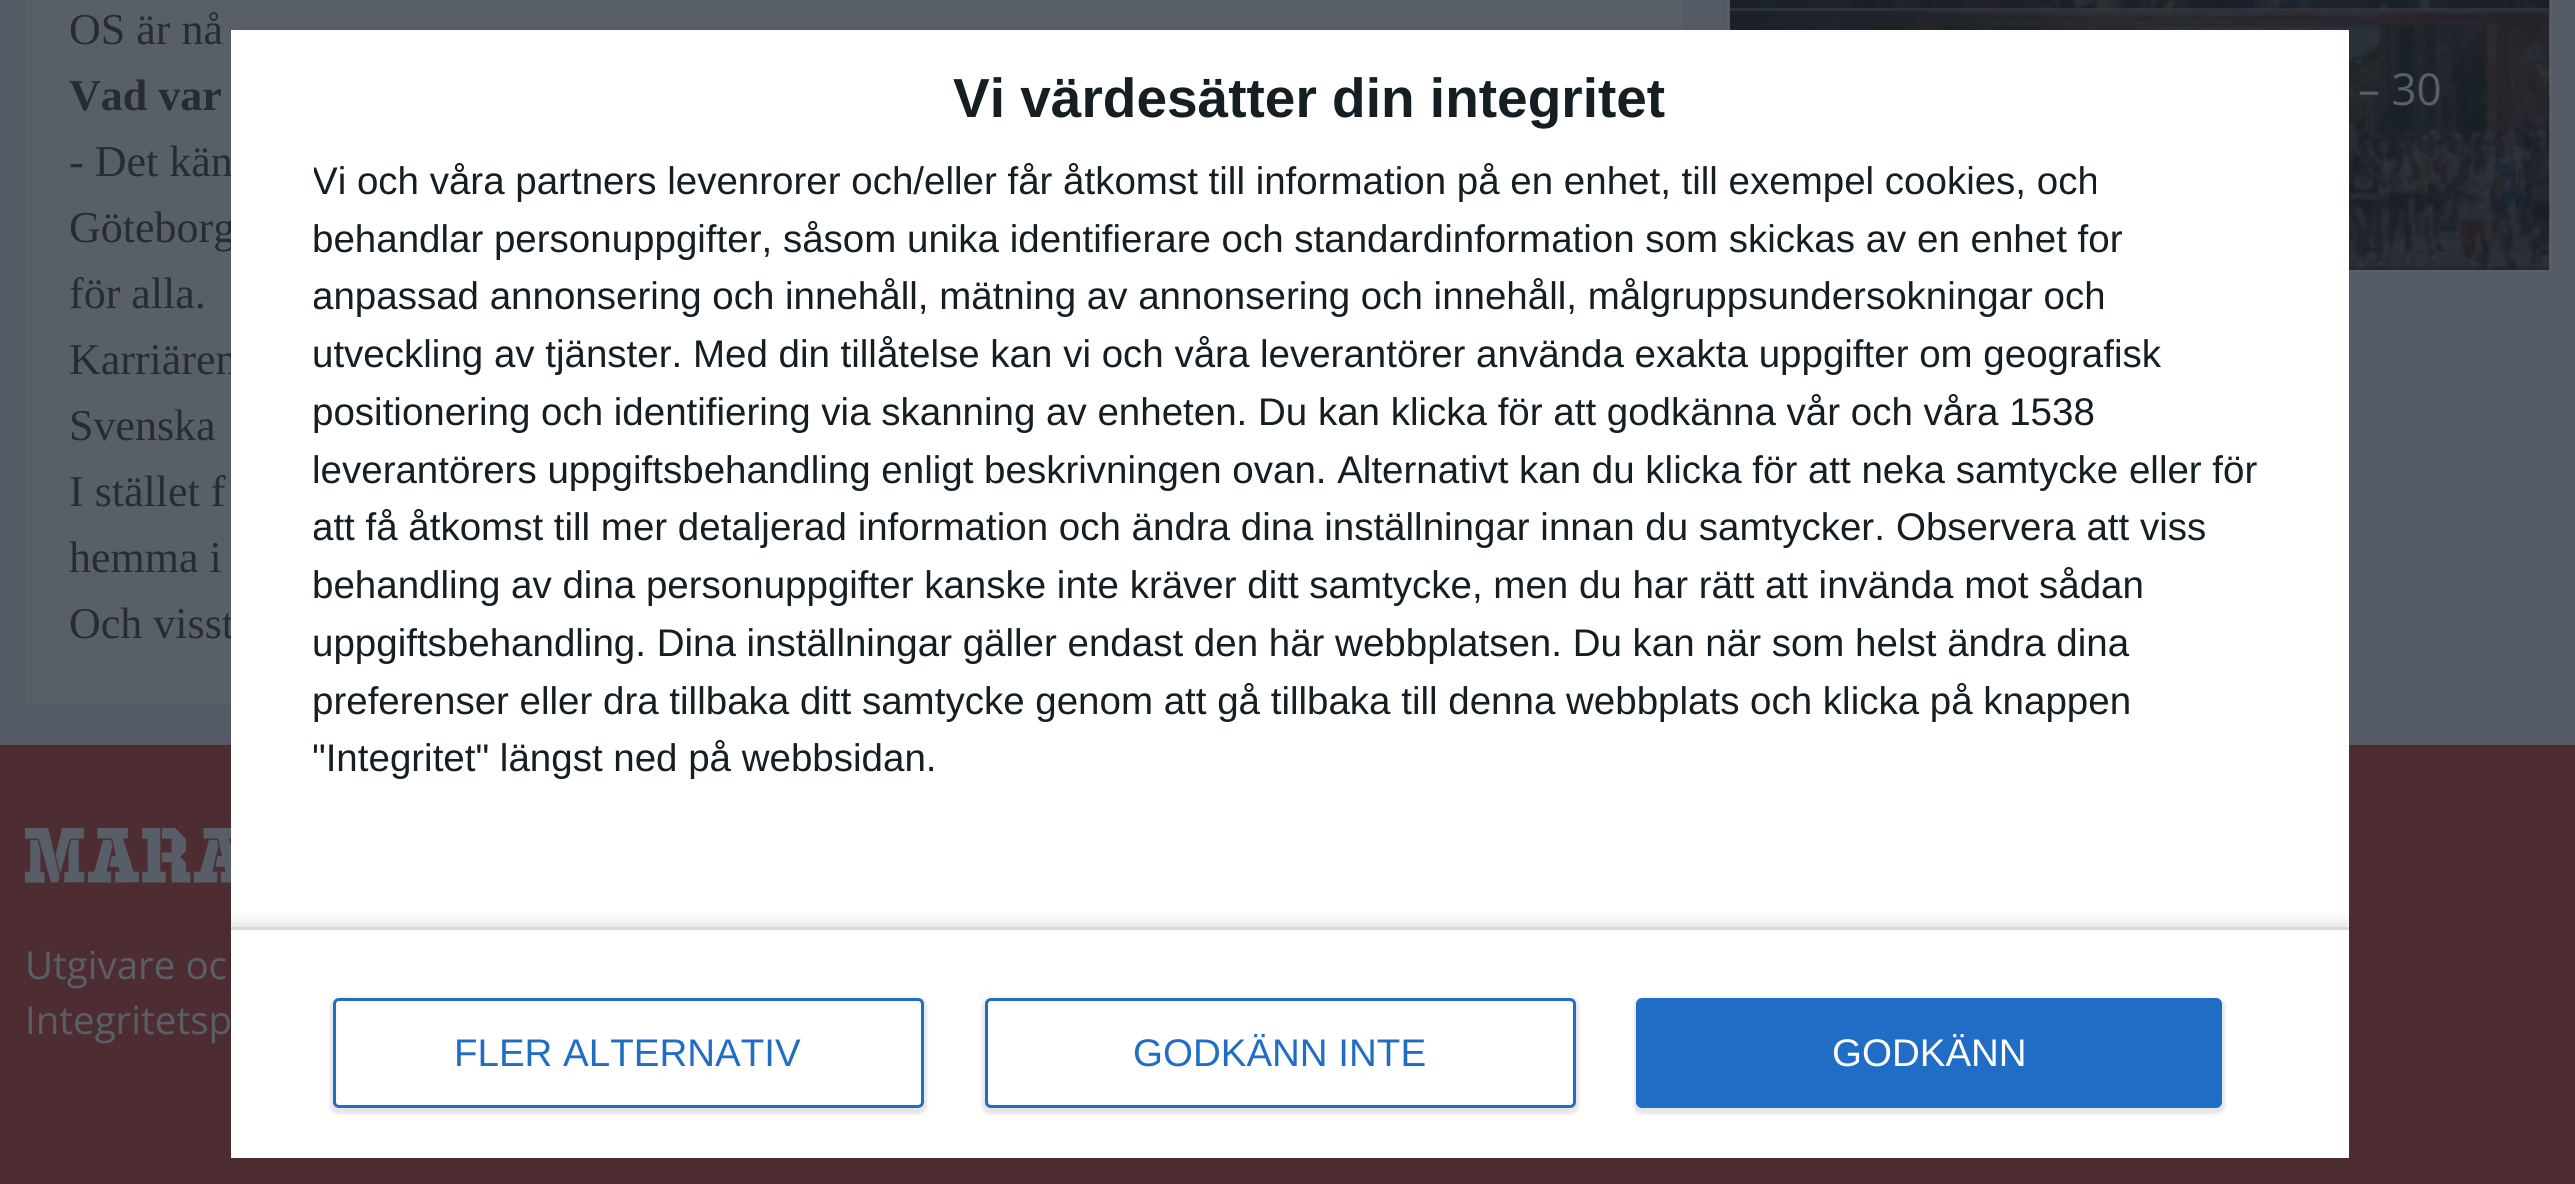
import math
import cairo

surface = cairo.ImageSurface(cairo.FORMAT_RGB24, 2575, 1184)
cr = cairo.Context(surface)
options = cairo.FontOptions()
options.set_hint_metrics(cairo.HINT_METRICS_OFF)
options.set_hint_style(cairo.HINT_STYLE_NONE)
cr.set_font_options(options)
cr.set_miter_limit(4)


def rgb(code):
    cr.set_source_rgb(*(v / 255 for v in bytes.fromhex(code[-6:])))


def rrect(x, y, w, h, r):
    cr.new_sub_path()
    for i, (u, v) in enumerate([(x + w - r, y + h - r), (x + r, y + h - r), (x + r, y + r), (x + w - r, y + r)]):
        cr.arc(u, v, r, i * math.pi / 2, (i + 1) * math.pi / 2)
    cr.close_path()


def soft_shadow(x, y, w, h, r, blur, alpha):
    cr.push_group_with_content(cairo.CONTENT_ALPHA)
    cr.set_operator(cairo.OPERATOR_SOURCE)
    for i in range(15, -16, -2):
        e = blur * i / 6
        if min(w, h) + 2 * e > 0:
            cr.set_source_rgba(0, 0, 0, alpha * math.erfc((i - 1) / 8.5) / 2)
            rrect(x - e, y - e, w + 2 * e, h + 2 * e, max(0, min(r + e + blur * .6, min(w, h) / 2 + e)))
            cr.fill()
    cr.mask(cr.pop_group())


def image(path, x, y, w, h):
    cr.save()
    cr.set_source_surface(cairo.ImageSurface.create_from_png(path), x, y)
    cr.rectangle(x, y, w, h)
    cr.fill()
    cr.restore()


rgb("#545a63")
cr.paint()
rgb("#595f67")
cr.rectangle(25, 0, 1658, 704)
cr.fill()
cr.rectangle(1727, 0, 825, 272)
cr.fill()
image("img/1.png", 1729, 0, 821, 12)
cr.set_source_rgba(0.098, 0.122, 0.153, 0.4)
cr.rectangle(1730, 8, 805, 3)
cr.fill()
gradient = cairo.LinearGradient(1730, -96, 2549, -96)
gradient.add_color_stop_rgba(0, 0.098, 0.122, 0.153, 0.9)
gradient.add_color_stop_rgba(0.5, 0.098, 0.122, 0.153, 0)
cr.set_source(gradient)
cr.rectangle(1730, 0, 350, 11)
cr.fill()
cr.set_source_rgba(0.349, 0.373, 0.404, 0.3)
cr.rectangle(1730, 8, 819, 3)
cr.fill()
image("img/2.png", 1729, 11, 821, 259)
cr.set_source_rgba(0.098, 0.122, 0.153, 0.4)
cr.rectangle(2349, 267, 200, 3)
cr.fill()
cr.set_source_rgba(0.349, 0.373, 0.404, 0.25)
cr.rectangle(1730, 11, 819, 3)
cr.fill()
cr.set_source_rgba(0.098, 0.122, 0.153, 0.65)
cr.rectangle(1730, 11, 819, 259)
cr.fill()
gradient = cairo.LinearGradient(1730, 140, 2549, 140)
gradient.add_color_stop_rgba(0, 0.098, 0.122, 0.153, 0.9)
gradient.add_color_stop_rgba(0.5, 0.098, 0.122, 0.153, 0)
cr.set_source(gradient)
cr.rectangle(1730, 11, 353, 19)
cr.fill()
rgb("#4e2d32")
cr.rectangle(0, 745, 2575, 439)
cr.fill()
image("img/3.png", 25, 828, 206, 55)
cr.select_font_face("Liberation Serif")
cr.set_font_size(44)
rgb("#262c34")
cr.move_to(69, 44)
cr.show_text("OS är nå")
cr.select_font_face("Liberation Serif", cairo.FONT_SLANT_NORMAL, cairo.FONT_WEIGHT_BOLD)
cr.move_to(69, 110)
cr.show_text("Vad var")
cr.select_font_face("Liberation Serif")
for x, y, s in [
    (69, 176, "- Det kän"),
    (69, 242, "Göteborg"),
    (69, 308, "för alla."),
    (69, 374, "Karriären"),
    (69, 440, "Svenska"),
    (69, 506, "I stället f"),
    (69, 572, "hemma i"),
    (69, 638, "Och visst"),
]:
    cr.move_to(x, y)
    cr.show_text(s)
cr.select_font_face("Open Sans")
rgb("#595f67")
cr.move_to(2358, 105)
cr.show_text("– 30")
cr.set_font_size(38.5)
cr.move_to(25, 979)
cr.show_text("Utgivare oc")
cr.move_to(25, 1034)
cr.show_text("Integritetsp")
rgb("#ffffff")
cr.rectangle(231, 30, 2118, 1128)
cr.fill()
cr.select_font_face("Liberation Sans", cairo.FONT_SLANT_NORMAL, cairo.FONT_WEIGHT_BOLD)
cr.set_font_size(55)
rgb("#141e23")
cr.move_to(953, 117)
cr.show_text("Vi värdesätter din integritet")
cr.save()
cr.rectangle(314, 154, 1952, 635)
cr.clip()
cr.select_font_face("Liberation Sans")
cr.set_font_size(38.5)
cr.move_to(312, 194)
cr.show_text("Vi och våra partners levenrorer och/eller får åtkomst till information på en enhet, till exempel cookies, och")
cr.restore()
cr.select_font_face("Liberation Sans")
cr.set_font_size(38.5)
cr.move_to(312, 252)
cr.show_text("behandlar personuppgifter, såsom unika identifierare och standardinformation som skickas av en enhet for")
cr.save()
cr.rectangle(314, 154, 1952, 635)
cr.clip()
cr.move_to(312, 309)
cr.show_text("anpassad annonsering och innehåll, mätning av annonsering och innehåll, målgruppsundersokningar och")
cr.restore()
for x, y, s in [
    (312, 367, "utveckling av tjänster. Med din tillåtelse kan vi och våra leverantörer använda exakta uppgifter om geografisk"),
    (312, 425, "positionering och identifiering via skanning av enheten. Du kan klicka för att godkänna vår och våra 1538"),
    (312, 483, "leverantörers uppgiftsbehandling enligt beskrivningen ovan. Alternativt kan du klicka för att neka samtycke eller för"),
]:
    cr.move_to(x, y)
    cr.show_text(s)
cr.save()
cr.rectangle(314, 154, 1952, 635)
cr.clip()
cr.move_to(312, 540)
cr.show_text("att få åtkomst till mer detaljerad information och ändra dina inställningar innan du samtycker.")
cr.restore()
for x, y, s in [
    (1896, 540, "Observera att viss"),
    (312, 598, "behandling av dina personuppgifter kanske inte kräver ditt samtycke, men du har rätt att invända mot sådan"),
    (312, 656, "uppgiftsbehandling. Dina inställningar gäller endast den här webbplatsen. Du kan när som helst ändra dina"),
    (312, 714, "preferenser eller dra tillbaka ditt samtycke genom att gå tillbaka till denna webbplats och klicka på knappen"),
]:
    cr.move_to(x, y)
    cr.show_text(s)
cr.save()
cr.rectangle(314, 154, 1952, 635)
cr.clip()
cr.move_to(312, 771)
cr.show_text("\"Integritet\" längst ned på webbsidan.")
cr.restore()
cr.save()
cr.set_fill_rule(cairo.FILL_RULE_EVEN_ODD)
cr.new_path()
cr.move_to(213, 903)
cr.line_to(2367, 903)
cr.line_to(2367, 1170)
cr.line_to(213, 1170)
cr.close_path()
cr.move_to(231, 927)
cr.line_to(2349, 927)
cr.line_to(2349, 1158)
cr.line_to(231, 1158)
cr.close_path()
cr.clip()
rgb("#000000")
soft_shadow(231, 921, 2118, 231, 0, 5.5, 0.1)
cr.restore()
rgb("#d8d8d8")
cr.rectangle(231, 927, 2118, 3)
cr.fill()
rgb("#000000")
soft_shadow(330, 998, 597, 116, 8, 1.5, 0.1)
rgb("#ffffff")
rrect(334.5, 999.5, 588, 107, 4.5)
cr.fill_preserve()
rgb("#206dc5")
cr.set_line_width(3)
cr.stroke()
cr.move_to(454, 1066)
cr.show_text("FLER ALTERNATIV")
rgb("#000000")
soft_shadow(982, 998, 597, 116, 8, 1.5, 0.1)
rgb("#ffffff")
rrect(986.5, 999.5, 588, 107, 4.5)
cr.fill_preserve()
rgb("#206dc5")
cr.stroke()
cr.save()
cr.rectangle(1133, 1034, 292, 39)
cr.clip()
cr.move_to(1133, 1066)
cr.show_text("GODKÄNN INTE")
cr.restore()
rgb("#000000")
soft_shadow(1634, 998, 591, 116, 8, 1.5, 0.1)
rgb("#206dc5")
rrect(1636, 998, 586, 110, 6)
cr.fill()
cr.save()
cr.rectangle(1832, 1034, 195, 39)
cr.clip()
rgb("#ffffff")
cr.move_to(1832, 1066)
cr.show_text("GODKÄNN")
cr.restore()
surface.write_to_png("page.png")
